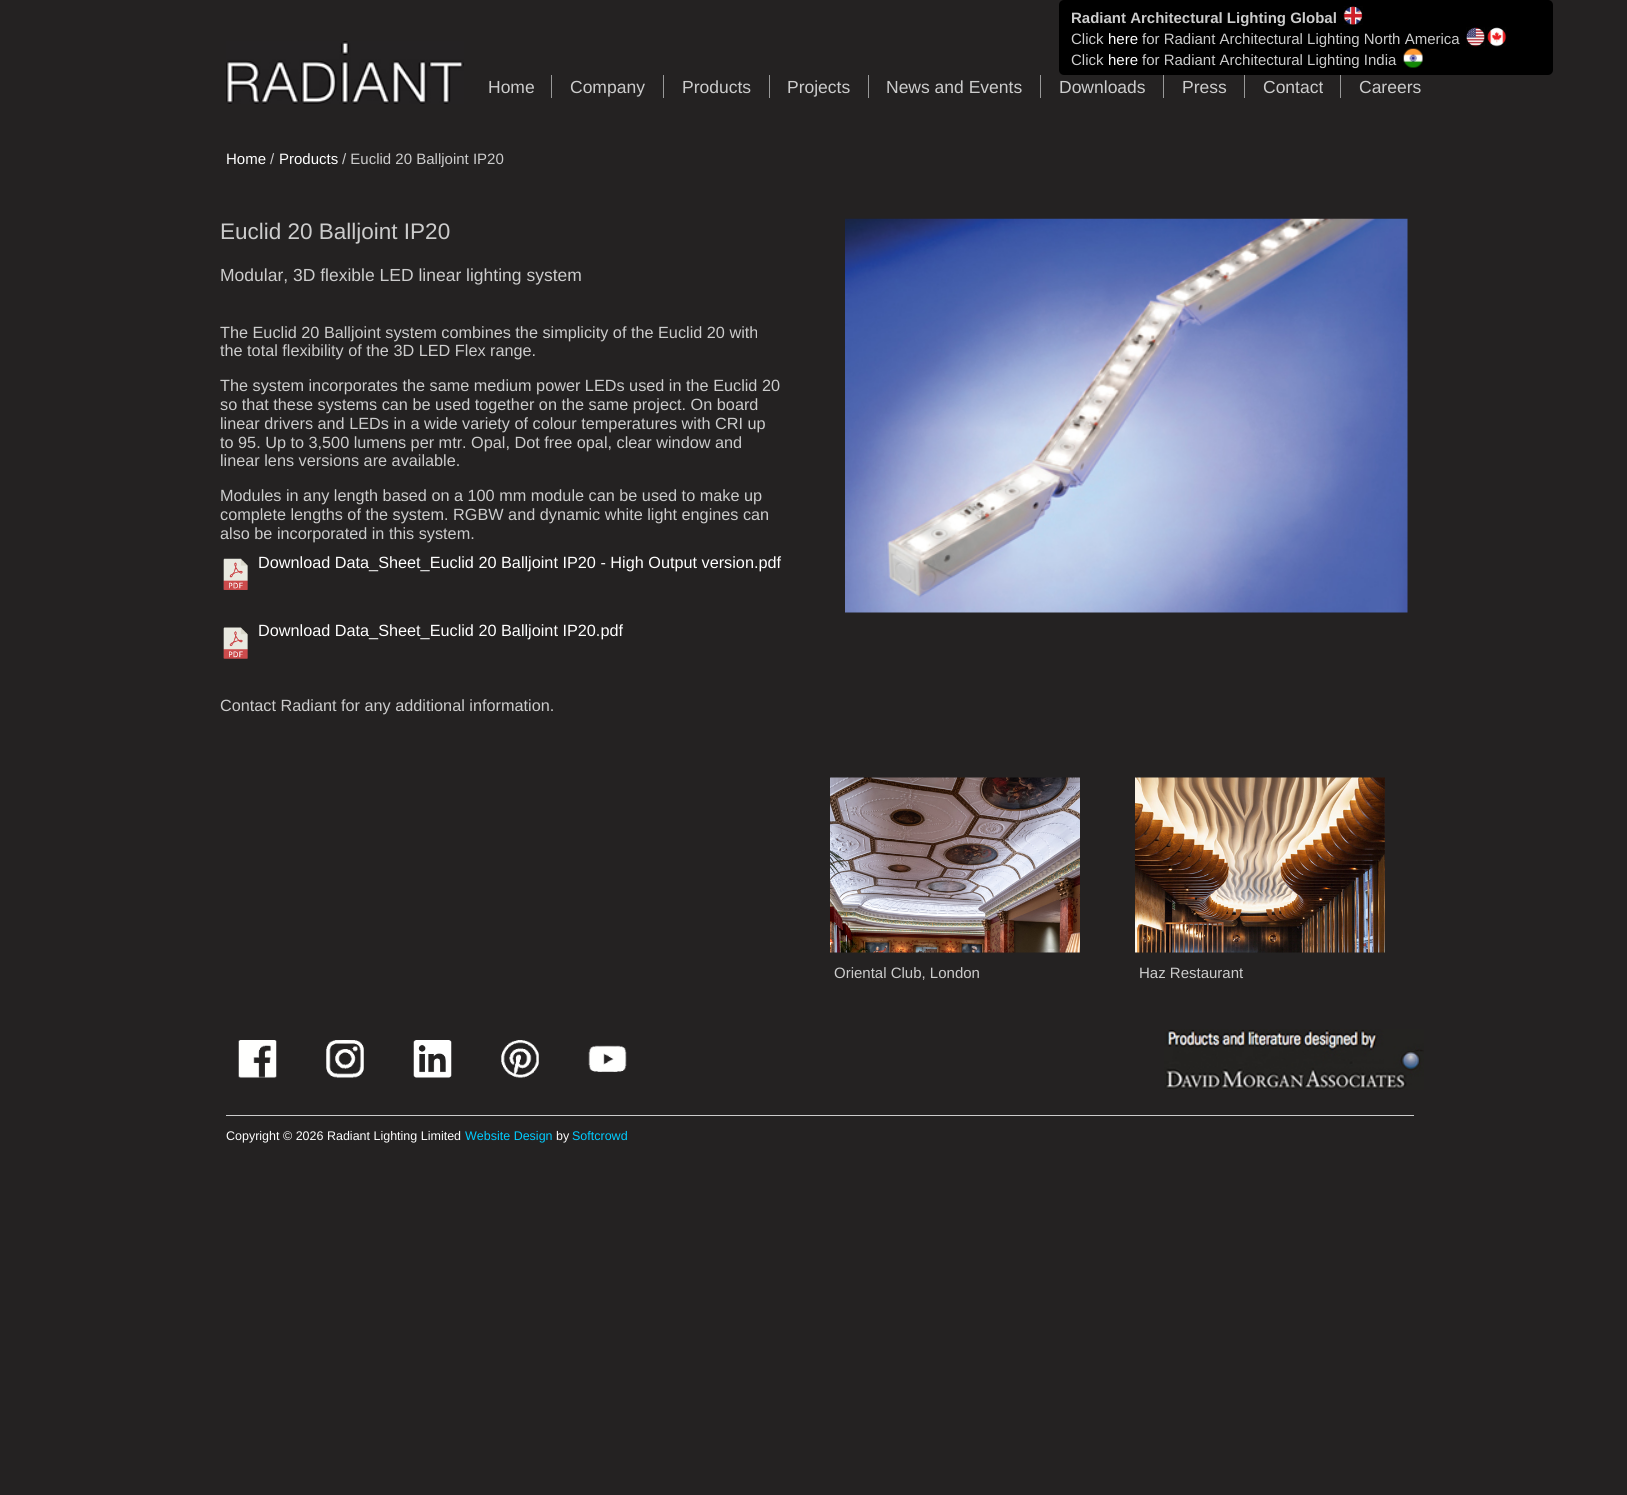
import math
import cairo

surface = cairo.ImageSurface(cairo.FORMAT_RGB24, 1627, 1495)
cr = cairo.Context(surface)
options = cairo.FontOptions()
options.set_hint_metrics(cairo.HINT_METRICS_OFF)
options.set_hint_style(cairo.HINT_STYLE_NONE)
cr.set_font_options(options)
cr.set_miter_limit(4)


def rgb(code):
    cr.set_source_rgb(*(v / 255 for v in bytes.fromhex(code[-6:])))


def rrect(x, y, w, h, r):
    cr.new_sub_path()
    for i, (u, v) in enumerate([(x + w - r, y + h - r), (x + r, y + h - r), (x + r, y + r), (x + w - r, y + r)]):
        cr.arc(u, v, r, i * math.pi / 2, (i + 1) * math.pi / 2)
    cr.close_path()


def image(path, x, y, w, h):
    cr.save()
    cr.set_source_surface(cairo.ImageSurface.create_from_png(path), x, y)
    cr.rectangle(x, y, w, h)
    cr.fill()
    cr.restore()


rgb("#242222")
cr.paint()
rgb("#000000")
rrect(1059, 0, 494, 75, 5)
cr.fill()
image("img/1.png", 1343, 6, 20, 19)
image("img/2.png", 1466, 27, 19, 20)
image("img/3.png", 1487, 27, 20, 20)
image("img/4.png", 1403, 48, 20, 20)
image("img/5.png", 226, 41, 238, 63)
for x, y, w, h, color in [
    (551, 75, 1, 23, "#989898"),
    (663, 75, 1, 23, "#989898"),
    (769, 75, 1, 23, "#989898"),
    (868, 75, 1, 23, "#989898"),
    (1040, 75, 1, 23, "#989898"),
    (1163, 75, 1, 23, "#989898"),
    (1244, 75, 1, 23, "#989898"),
    (1340, 75, 1, 23, "#989898"),
]:
    rgb(color)
    cr.rectangle(x, y, w, h)
    cr.fill()
image("img/6.png", 223, 558, 25, 32)
image("img/7.png", 223, 627, 25, 32)
image("img/8.png", 845, 218, 563, 395)
image("img/9.png", 830, 777, 250, 176)
image("img/10.png", 1135, 777, 250, 176)
image("img/11.png", 238, 1040, 39, 38)
image("img/12.png", 326, 1040, 38, 38)
image("img/13.png", 413, 1040, 39, 38)
image("img/14.png", 501, 1040, 38, 38)
image("img/15.png", 588, 1045, 39, 27)
rgb("#cccccc")
cr.rectangle(226, 1115, 1188, 1)
cr.fill()
image("img/16.png", 1164, 1029, 260, 61)
cr.select_font_face("Liberation Sans", cairo.FONT_SLANT_NORMAL, cairo.FONT_WEIGHT_BOLD)
cr.set_font_size(15)
cr.move_to(1071, 23)
cr.show_text("Radiant Architectural Lighting Global")
cr.select_font_face("Liberation Sans")
cr.move_to(1071, 44)
cr.show_text("Click")
rgb("#ffffff")
cr.move_to(1108, 44)
cr.show_text("here")
rgb("#cccccc")
cr.move_to(1142, 44)
cr.show_text("for Radiant Architectural Lighting North America")
cr.move_to(1071, 65)
cr.show_text("Click")
rgb("#ffffff")
cr.move_to(1108, 65)
cr.show_text("here")
rgb("#cccccc")
cr.move_to(1142, 65)
cr.show_text("for Radiant Architectural Lighting India")
cr.set_font_size(17.5)
for x, y, s in [
    (488, 93, "Home"),
    (570, 93, "Company"),
    (682, 93, "Products"),
    (787, 93, "Projects"),
    (886, 93, "News and Events"),
    (1059, 93, "Downloads"),
    (1182, 93, "Press"),
    (1263, 93, "Contact"),
    (1359, 93, "Careers"),
]:
    cr.move_to(x, y)
    cr.show_text(s)
cr.set_font_size(15)
rgb("#ffffff")
cr.move_to(226, 164)
cr.show_text("Home")
rgb("#cccccc")
cr.move_to(270, 164)
cr.show_text("/")
rgb("#ffffff")
cr.move_to(279, 164)
cr.show_text("Products")
rgb("#cccccc")
cr.move_to(342, 164)
cr.show_text("/ Euclid 20 Balljoint IP20")
cr.set_font_size(22.5)
cr.move_to(220, 239)
cr.show_text("Euclid 20 Balljoint IP20")
cr.set_font_size(17.5)
cr.move_to(220, 281)
cr.show_text("Modular, 3D flexible LED linear lighting system")
cr.set_font_size(16.25)
for x, y, s in [
    (220, 338, "The Euclid 20 Balljoint system combines the simplicity of the Euclid 20 with"),
    (220, 356, "the total flexibility of the 3D LED Flex range."),
    (220, 391, "The system incorporates the same medium power LEDs used in the Euclid 20"),
    (220, 410, "so that these systems can be used together on the same project. On board"),
    (220, 429, "linear drivers and LEDs in a wide variety of colour temperatures with CRI up"),
    (220, 448, "to 95. Up to 3,500 lumens per mtr. Opal, Dot free opal, clear window and"),
    (220, 466, "linear lens versions are available."),
    (220, 501, "Modules in any length based on a 100 mm module can be used to make up"),
    (220, 520, "complete lengths of the system. RGBW and dynamic white light engines can"),
    (220, 539, "also be incorporated in this system."),
]:
    cr.move_to(x, y)
    cr.show_text(s)
rgb("#ffffff")
cr.move_to(258, 568)
cr.show_text("Download Data_Sheet_Euclid 20 Balljoint IP20 - High Output version.pdf")
cr.move_to(258, 636)
cr.show_text("Download Data_Sheet_Euclid 20 Balljoint IP20.pdf")
rgb("#cccccc")
cr.move_to(220, 711)
cr.show_text("Contact Radiant for any additional information.")
cr.set_font_size(15)
cr.move_to(834, 978)
cr.show_text("Oriental Club, London")
cr.move_to(1139, 978)
cr.show_text("Haz Restaurant")
cr.set_font_size(12.5)
rgb("#ffffff")
cr.move_to(226, 1140)
cr.show_text("Copyright © 2026 Radiant Lighting Limited")
rgb("#00ccff")
cr.move_to(465, 1140)
cr.show_text("Website Design")
rgb("#ffffff")
cr.move_to(556, 1140)
cr.show_text("by")
rgb("#00ccff")
cr.move_to(572, 1140)
cr.show_text("Softcrowd")
surface.write_to_png("page.png")
